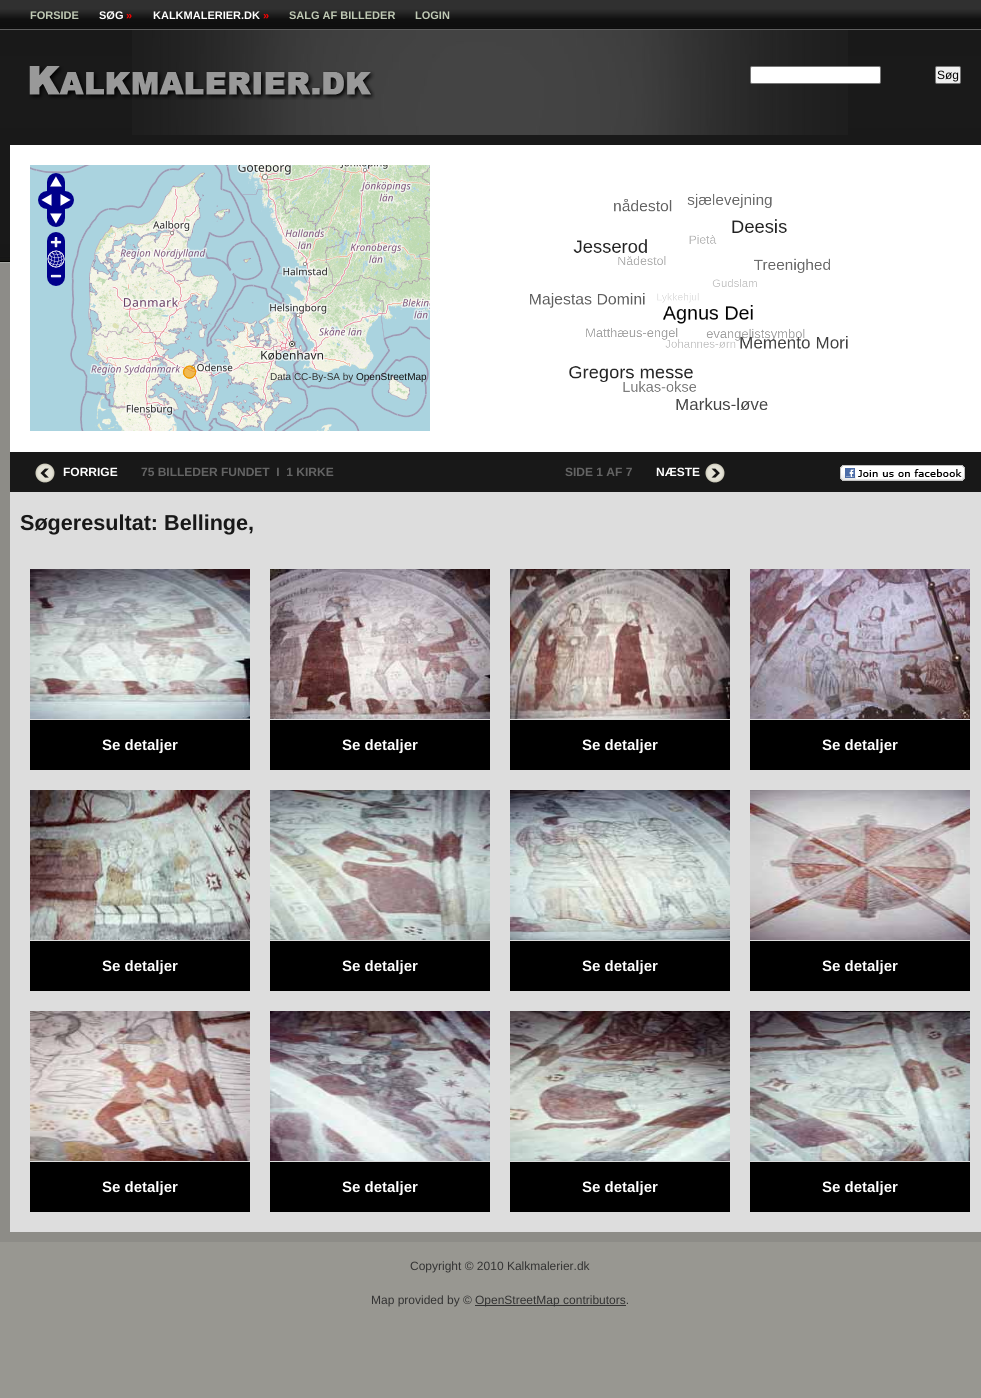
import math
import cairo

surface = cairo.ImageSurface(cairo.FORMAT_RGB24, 981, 1398)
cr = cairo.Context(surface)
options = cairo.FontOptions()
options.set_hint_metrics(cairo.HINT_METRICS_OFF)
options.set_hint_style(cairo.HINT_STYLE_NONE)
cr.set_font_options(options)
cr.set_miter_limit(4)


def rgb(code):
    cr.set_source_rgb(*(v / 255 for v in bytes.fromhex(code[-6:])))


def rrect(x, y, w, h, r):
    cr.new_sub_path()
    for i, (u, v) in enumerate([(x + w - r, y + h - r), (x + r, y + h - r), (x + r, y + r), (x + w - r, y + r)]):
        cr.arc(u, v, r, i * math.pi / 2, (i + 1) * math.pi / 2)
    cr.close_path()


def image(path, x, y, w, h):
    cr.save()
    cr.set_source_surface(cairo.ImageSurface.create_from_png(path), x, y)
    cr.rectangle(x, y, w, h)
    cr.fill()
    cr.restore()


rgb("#989791")
cr.paint()
image("img/1.png", 0, 0, 981, 379)
image("img/2.png", 132, 30, 716, 105)
image("img/3.png", 29, 66, 346, 34)
rgb("#ffffff")
rrect(750.5, 66.5, 130, 17, 1.5)
cr.fill_preserve()
rgb("#767676")
cr.set_line_width(1)
cr.stroke()
rgb("#efefef")
rrect(935.5, 66.5, 25, 17, 1.5)
cr.fill_preserve()
rgb("#767676")
cr.stroke()
image("img/4.png", 0, 262, 981, 980)
rgb("#ffffff")
cr.rectangle(10, 145, 971, 307)
cr.fill()
image("img/5.png", 30, 165, 202, 172)
image("img/6.png", 232, 165, 198, 172)
image("img/7.png", 30, 337, 202, 94)
image("img/8.png", 232, 337, 198, 94)
cr.set_source_rgba(0.933, 0.6, 0, 0.4)
cr.arc(189.5, 372, 6, 0, 2 * math.pi)
cr.fill_preserve()
rgb("#ee9900")
cr.stroke()
image("img/9.png", 47, 173, 18, 18)
image("img/10.png", 38, 191, 18, 18)
image("img/11.png", 56, 191, 18, 18)
image("img/12.png", 47, 209, 18, 18)
image("img/13.png", 47, 232, 18, 18)
image("img/14.png", 47, 250, 18, 18)
image("img/15.png", 47, 268, 18, 18)
image("img/16.png", 530, 193, 318, 217)
rgb("#181818")
cr.rectangle(10, 452, 971, 40)
cr.fill()
image("img/17.png", 35, 463, 20, 20)
image("img/18.png", 705, 463, 20, 20)
image("img/19.png", 840, 465, 125, 16)
rgb("#dddddd")
cr.rectangle(10, 492, 971, 740)
cr.fill()
image("img/20.png", 30, 569, 220, 150)
rgb("#000000")
cr.rectangle(30, 720, 220, 50)
cr.fill()
image("img/21.png", 270, 569, 220, 150)
cr.rectangle(270, 720, 220, 50)
cr.fill()
image("img/22.png", 510, 569, 220, 150)
cr.rectangle(510, 720, 220, 50)
cr.fill()
image("img/23.png", 750, 569, 220, 150)
cr.rectangle(750, 720, 220, 50)
cr.fill()
image("img/24.png", 30, 790, 220, 150)
cr.rectangle(30, 941, 220, 50)
cr.fill()
image("img/25.png", 270, 790, 220, 150)
cr.rectangle(270, 941, 220, 50)
cr.fill()
image("img/26.png", 510, 790, 220, 150)
cr.rectangle(510, 941, 220, 50)
cr.fill()
image("img/27.png", 750, 790, 220, 150)
cr.rectangle(750, 941, 220, 50)
cr.fill()
image("img/28.png", 30, 1011, 220, 150)
cr.rectangle(30, 1162, 220, 50)
cr.fill()
image("img/29.png", 270, 1011, 220, 150)
cr.rectangle(270, 1162, 220, 50)
cr.fill()
image("img/30.png", 510, 1011, 220, 150)
cr.rectangle(510, 1162, 220, 50)
cr.fill()
image("img/31.png", 750, 1011, 220, 150)
cr.rectangle(750, 1162, 220, 50)
cr.fill()
rgb("#333333")
cr.rectangle(475, 1305, 151, 1)
cr.fill()
cr.select_font_face("Liberation Sans", cairo.FONT_SLANT_NORMAL, cairo.FONT_WEIGHT_BOLD)
cr.set_font_size(11)
rgb("#bfc9b4")
cr.move_to(30, 19)
cr.show_text("FORSIDE")
rgb("#ffffff")
cr.move_to(99, 19)
cr.show_text("SØG")
rgb("#ff0000")
cr.move_to(126, 19)
cr.show_text("»")
rgb("#ffffff")
cr.move_to(153, 19)
cr.show_text("KALKMALERIER.DK")
rgb("#ff0000")
cr.move_to(263, 19)
cr.show_text("»")
rgb("#bfc9b4")
cr.move_to(289, 19)
cr.show_text("SALG AF BILLEDER")
cr.move_to(415, 19)
cr.show_text("LOGIN")
cr.select_font_face("Liberation Sans")
cr.set_font_size(12)
rgb("#000000")
cr.move_to(937, 79)
cr.show_text("Søg")
cr.set_font_size(10)
rgb("#333333")
cr.move_to(270, 380)
cr.show_text("Data CC-By-SA by")
rgb("#111111")
cr.move_to(356, 380)
cr.show_text("OpenStreetMap")
cr.select_font_face("Liberation Sans", cairo.FONT_SLANT_NORMAL, cairo.FONT_WEIGHT_BOLD)
cr.set_font_size(12)
rgb("#ffffff")
cr.move_to(63, 476)
cr.show_text("FORRIGE")
rgb("#646464")
cr.move_to(141, 476)
cr.show_text("75 BILLEDER FUNDET  I  1 KIRKE")
cr.move_to(565, 476)
cr.show_text("SIDE 1 AF 7")
rgb("#ffffff")
cr.move_to(656, 476)
cr.show_text("NÆSTE")
cr.set_font_size(21.6)
rgb("#181818")
cr.move_to(20, 530)
cr.show_text("Søgeresultat: Bellinge,")
cr.set_font_size(15)
rgb("#ffffff")
for x, y, s in [
    (102, 750, "Se detaljer"),
    (342, 750, "Se detaljer"),
    (582, 750, "Se detaljer"),
    (822, 750, "Se detaljer"),
    (102, 971, "Se detaljer"),
    (342, 971, "Se detaljer"),
    (582, 971, "Se detaljer"),
    (822, 971, "Se detaljer"),
    (102, 1192, "Se detaljer"),
    (342, 1192, "Se detaljer"),
    (582, 1192, "Se detaljer"),
    (822, 1192, "Se detaljer"),
]:
    cr.move_to(x, y)
    cr.show_text(s)
cr.select_font_face("Liberation Sans")
cr.set_font_size(12)
rgb("#333333")
for x, y, s in [
    (410, 1270, "Copyright © 2010 Kalkmalerier.dk"),
    (371, 1304, "Map provided by ©"),
    (475, 1304, "OpenStreetMap contributors."),
]:
    cr.move_to(x, y)
    cr.show_text(s)
surface.write_to_png("page.png")
